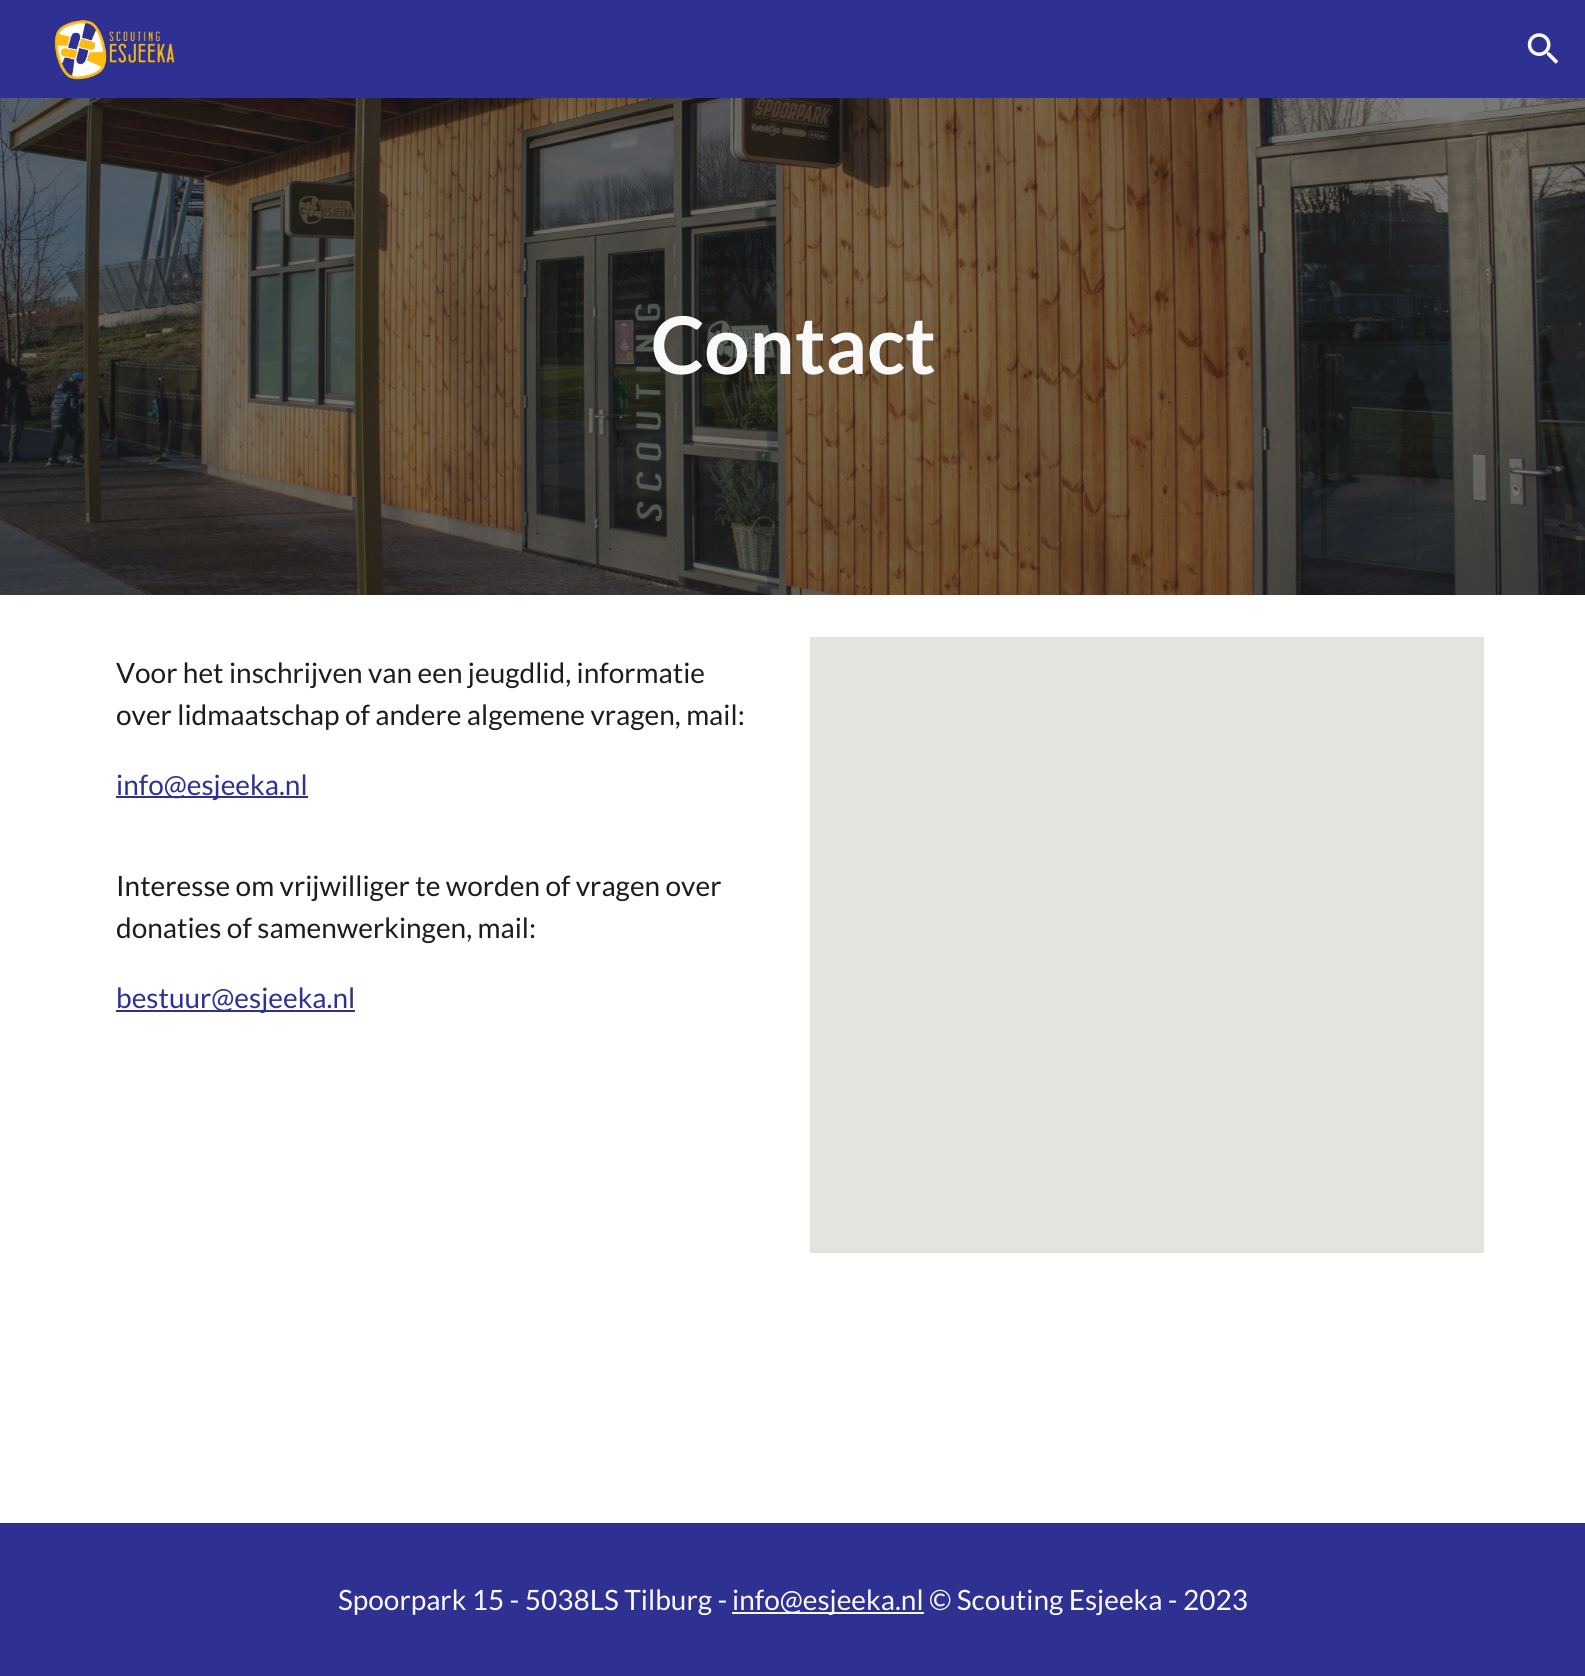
import math
import cairo

surface = cairo.ImageSurface(cairo.FORMAT_RGB24, 1585, 1676)
cr = cairo.Context(surface)
options = cairo.FontOptions()
options.set_hint_metrics(cairo.HINT_METRICS_OFF)
options.set_hint_style(cairo.HINT_STYLE_NONE)
cr.set_font_options(options)
cr.set_miter_limit(4)


def rgb(code):
    cr.set_source_rgb(*(v / 255 for v in bytes.fromhex(code[-6:])))


def image(path, x, y, w, h):
    cr.save()
    cr.set_source_surface(cairo.ImageSurface.create_from_png(path), x, y)
    cr.rectangle(x, y, w, h)
    cr.fill()
    cr.restore()


rgb("#ffffff")
cr.paint()
rgb("#2e3192")
cr.rectangle(0, 0, 1585, 98)
cr.fill()
image("img/1.png", 54, 20, 121, 60)
image("img/2.png", 1527, 33, 32, 31)
image("img/3.png", 0, 98, 1585, 497)
for x, y, w, h, color in [
    (116, 796, 192, 2, "#2e3192"),
    (116, 1010, 239, 2, "#2e3192"),
    (810, 637, 674, 616, "#e5e3df"),
    (0, 1523, 1585, 153, "#2e3192"),
    (732, 1612, 192, 2, "#f9f9f9"),
]:
    rgb(color)
    cr.rectangle(x, y, w, h)
    cr.fill()
cr.select_font_face("Lato", cairo.FONT_SLANT_NORMAL, cairo.FONT_WEIGHT_BOLD)
cr.set_font_size(79.5)
cr.move_to(651, 374)
cr.show_text("Contact")
cr.select_font_face("Lato")
cr.set_font_size(28)
rgb("#1c1c1c")
cr.move_to(116, 683)
cr.show_text("Voor het inschrijven van een jeugdlid, informatie")
cr.move_to(116, 725)
cr.show_text("over lidmaatschap of andere algemene vragen, mail:")
rgb("#2e3192")
cr.move_to(116, 795)
cr.show_text("info@esjeeka.nl")
rgb("#1c1c1c")
cr.move_to(116, 896)
cr.show_text("Interesse om vrijwilliger te worden of vragen over")
cr.move_to(116, 938)
cr.show_text("donaties of samenwerkingen, mail:")
rgb("#2e3192")
cr.move_to(116, 1008)
cr.show_text("bestuur@esjeeka.nl")
rgb("#f9f9f9")
cr.move_to(338, 1610)
cr.show_text("Spoorpark 15 - 5038LS Tilburg -")
cr.move_to(732, 1610)
cr.show_text("info@esjeeka.nl © Scouting Esjeeka - 2023")
surface.write_to_png("page.png")
